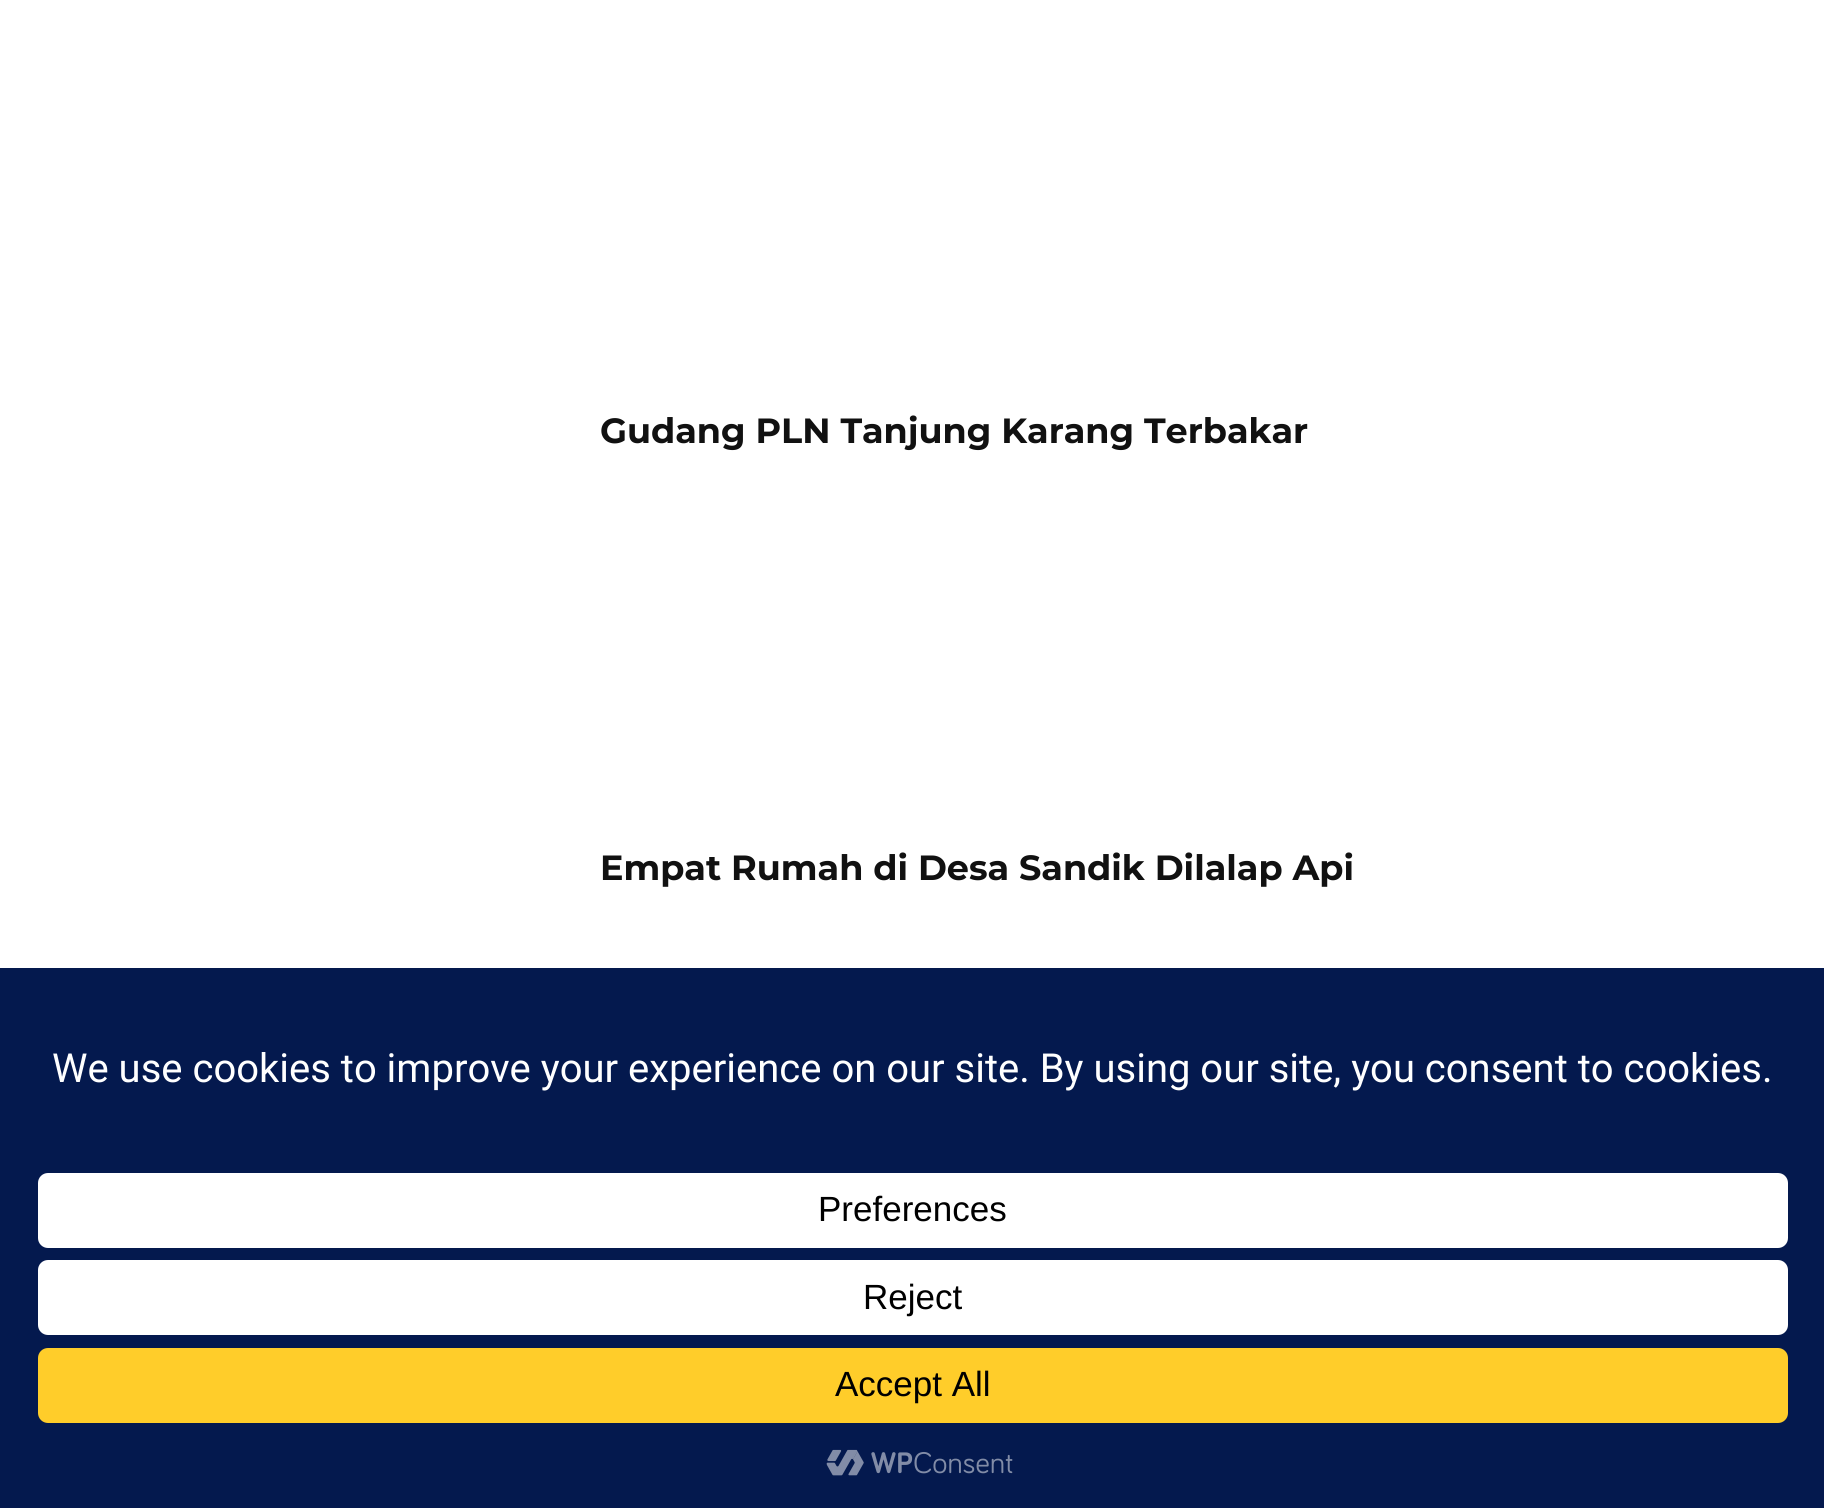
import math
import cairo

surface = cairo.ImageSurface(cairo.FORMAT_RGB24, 1824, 1508)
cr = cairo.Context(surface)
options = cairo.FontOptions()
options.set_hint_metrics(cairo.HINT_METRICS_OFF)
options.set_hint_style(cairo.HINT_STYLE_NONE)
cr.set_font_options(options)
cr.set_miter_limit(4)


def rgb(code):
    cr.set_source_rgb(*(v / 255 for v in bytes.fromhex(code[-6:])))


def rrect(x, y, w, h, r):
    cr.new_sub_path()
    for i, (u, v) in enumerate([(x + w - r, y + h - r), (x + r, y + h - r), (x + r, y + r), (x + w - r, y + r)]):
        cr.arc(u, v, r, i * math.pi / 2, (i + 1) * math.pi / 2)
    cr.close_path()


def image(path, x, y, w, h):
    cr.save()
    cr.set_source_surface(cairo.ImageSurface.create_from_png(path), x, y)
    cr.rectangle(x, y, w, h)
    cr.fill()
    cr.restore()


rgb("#ffffff")
cr.paint()
rgb("#04194e")
cr.rectangle(0, 968, 1824, 540)
cr.fill()
rgb("#ffffff")
rrect(38, 1173, 1750, 75, 10)
cr.fill()
rrect(38, 1260, 1750, 75, 10)
cr.fill()
rgb("#ffcd2a")
rrect(38, 1348, 1750, 75, 10)
cr.fill()
image("img/1.png", 826, 1449, 187, 27)
cr.select_font_face("Montserrat", cairo.FONT_SLANT_NORMAL, cairo.FONT_WEIGHT_BOLD)
cr.set_font_size(35)
rgb("#111111")
cr.move_to(600, 443)
cr.show_text("Gudang PLN Tanjung Karang Terbakar")
cr.move_to(600, 880)
cr.show_text("Empat Rumah di Desa Sandik Dilalap Api")
cr.select_font_face("Roboto")
cr.set_font_size(40)
rgb("#ffffff")
cr.move_to(52, 1082)
cr.show_text("We use cookies to improve your experience on our site. By using our site, you consent to cookies.")
cr.select_font_face("Liberation Sans")
cr.set_font_size(35)
rgb("#000000")
for x, y, s in [
    (818, 1221, "Preferences"),
    (863, 1309, "Reject"),
    (835, 1396, "Accept All"),
]:
    cr.move_to(x, y)
    cr.show_text(s)
surface.write_to_png("page.png")
